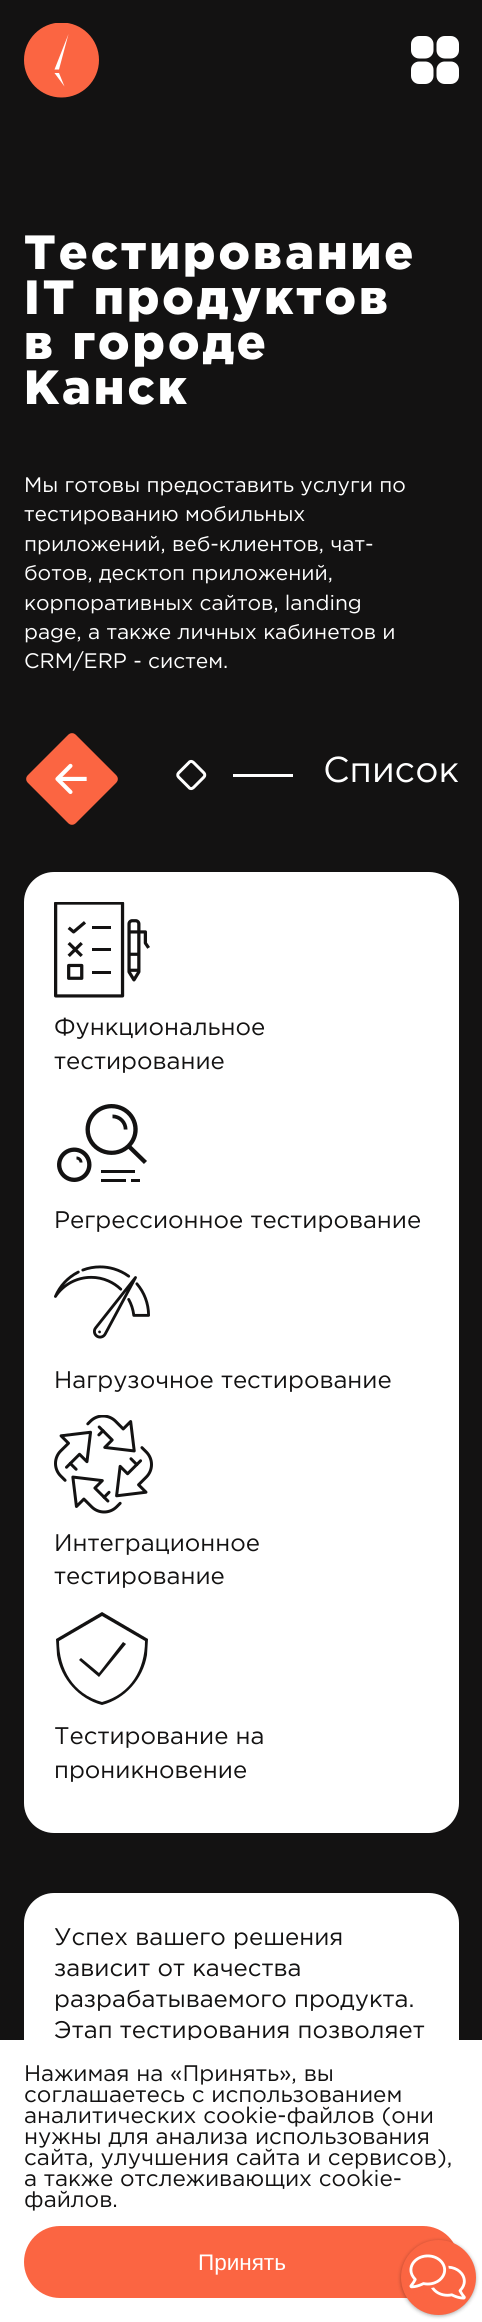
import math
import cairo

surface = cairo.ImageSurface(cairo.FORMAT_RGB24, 482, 2322)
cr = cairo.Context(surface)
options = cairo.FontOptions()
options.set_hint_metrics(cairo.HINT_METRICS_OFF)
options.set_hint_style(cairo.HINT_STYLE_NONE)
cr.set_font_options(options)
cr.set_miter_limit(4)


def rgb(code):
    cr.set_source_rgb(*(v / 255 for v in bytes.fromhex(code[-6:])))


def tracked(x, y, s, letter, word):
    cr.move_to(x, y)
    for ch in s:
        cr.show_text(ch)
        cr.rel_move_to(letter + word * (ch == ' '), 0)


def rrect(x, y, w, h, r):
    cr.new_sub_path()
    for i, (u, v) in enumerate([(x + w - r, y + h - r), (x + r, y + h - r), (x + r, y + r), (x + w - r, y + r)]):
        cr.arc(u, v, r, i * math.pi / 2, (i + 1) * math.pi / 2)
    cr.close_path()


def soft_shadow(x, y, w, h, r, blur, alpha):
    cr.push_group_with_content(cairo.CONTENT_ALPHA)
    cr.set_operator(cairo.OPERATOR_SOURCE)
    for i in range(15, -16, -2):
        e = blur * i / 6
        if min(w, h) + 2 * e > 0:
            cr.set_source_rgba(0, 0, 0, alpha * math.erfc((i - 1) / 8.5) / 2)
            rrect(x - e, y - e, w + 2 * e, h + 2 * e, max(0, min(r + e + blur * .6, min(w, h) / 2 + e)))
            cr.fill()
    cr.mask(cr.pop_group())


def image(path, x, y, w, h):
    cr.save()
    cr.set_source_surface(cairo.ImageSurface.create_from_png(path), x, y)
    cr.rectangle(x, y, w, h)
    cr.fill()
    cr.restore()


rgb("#131212")
cr.paint()
cr.save()
cr.rectangle(24, 23, 75, 75)
cr.clip()
rgb("#fb6542")
cr.arc(61.5, 60, 37.5, 0, 2 * math.pi)
cr.fill()
cr.restore()
rgb("#ffffff")
cr.new_path()
cr.move_to(68.5, 34)
cr.line_to(59, 69.5)
cr.line_to(54.5, 69.5)
cr.close_path()
cr.move_to(64.5, 86.5)
cr.line_to(59, 73)
cr.line_to(54.5, 73)
cr.close_path()
cr.fill()
image("img/1.png", 411, 36, 48, 48)
image("img/2.png", 26, 733, 92, 92)
cr.new_path()
cr.move_to(193.5, 762.5)
cr.line_to(204, 773)
cr.curve_to(205, 774, 205, 776, 204, 777)
cr.line_to(193.5, 787.5)
cr.curve_to(192, 789, 190, 789, 189, 787.5)
cr.line_to(178.5, 777)
cr.curve_to(177.5, 776, 177.5, 774, 178.5, 773)
cr.line_to(189, 762.5)
cr.curve_to(190, 761, 192, 761, 193.5, 762.5)
cr.close_path()
cr.set_line_width(3)
cr.stroke()
cr.rectangle(233, 774, 60, 3)
cr.fill()
rrect(24, 872, 435, 961, 30)
cr.fill()
image("img/3.png", 54, 902, 96, 96)
image("img/4.png", 57, 1104, 90, 78)
image("img/5.png", 54, 1265, 96, 74)
image("img/6.png", 54, 1415, 99, 99)
rgb("#131212")
cr.set_fill_rule(cairo.FILL_RULE_EVEN_ODD)
cr.new_path()
cr.move_to(102, 1612)
cr.line_to(148, 1639)
cr.line_to(147, 1655)
cr.curve_to(143, 1679, 125, 1699, 102, 1705)
cr.curve_to(79, 1699, 61, 1679, 57, 1655)
cr.line_to(56, 1639)
cr.close_path()
cr.move_to(59, 1641)
cr.curve_to(59, 1669, 73, 1694, 102, 1702)
cr.curve_to(131, 1694, 145, 1669, 145, 1641)
cr.line_to(102, 1616)
cr.close_path()
cr.move_to(126, 1644)
cr.line_to(99, 1677)
cr.line_to(79, 1660)
cr.line_to(81, 1658)
cr.line_to(99, 1673)
cr.line_to(123, 1642)
cr.close_path()
cr.fill()
rgb("#ffffff")
cr.new_path()
cr.move_to(54, 1893)
cr.line_to(429, 1893)
cr.curve_to(445.5, 1893, 459, 1906.5, 459, 1923)
cr.line_to(459, 2322)
cr.line_to(24, 2322)
cr.line_to(24, 1923)
cr.curve_to(24, 1906.5, 37.5, 1893, 54, 1893)
cr.close_path()
cr.fill()
cr.select_font_face("Gotham Black")
cr.set_font_size(48)
for x, y, s in [
    (24, 269, "Тестирование"),
    (24, 314, "IT продуктов"),
    (24, 359, "в городе"),
    (24, 404, "Канск"),
]:
    tracked(x, y, s, 3, 0)
cr.select_font_face("Gotham")
cr.set_font_size(21)
for x, y, s in [
    (24, 492, "Мы готовы предоставить услуги по"),
    (24, 521, "тестированию мобильных"),
    (24, 551, "приложений, веб-клиентов, чат-"),
    (24, 580, "ботов, десктоп приложений,"),
    (24, 610, "корпоративных сайтов, landing"),
    (24, 639, "page, а также личных кабинетов и"),
    (24, 668, "CRM/ERP - систем."),
]:
    cr.move_to(x, y)
    cr.show_text(s)
cr.set_font_size(36)
cr.move_to(323, 782)
cr.show_text("Список")
cr.set_font_size(24)
rgb("#131212")
for x, y, s in [
    (54, 1035, "Функциональное"),
    (54, 1069, "тестирование"),
    (54, 1228, "Регрессионное тестирование"),
    (54, 1388, "Нагрузочное тестирование"),
    (54, 1551, "Интеграционное"),
    (54, 1584, "тестирование"),
    (54, 1744, "Тестирование на"),
    (54, 1778, "проникновение"),
    (54, 1945, "Успех вашего решения"),
    (54, 1976, "зависит от качества"),
    (54, 2007, "разрабатываемого продукта."),
    (54, 2038, "Этап тестирования позволяет"),
]:
    cr.move_to(x, y)
    cr.show_text(s)
rgb("#ffffff")
cr.rectangle(0, 2040, 482, 282)
cr.fill()
cr.set_font_size(22.5)
rgb("#131212")
for x, y, s in [
    (24, 2081, "Нажимая на «Принять», вы"),
    (24, 2102, "соглашаетесь с использованием"),
    (24, 2123, "аналитических cookie-файлов (они"),
    (24, 2144, "нужны для анализа использования"),
    (24, 2165, "сайта, улучшения сайта и сервисов),"),
    (24, 2186, "а также отслеживающих cookie-"),
    (24, 2207, "файлов."),
]:
    cr.move_to(x, y)
    cr.show_text(s)
rgb("#fb6542")
rrect(24, 2226, 435, 72, 36)
cr.fill()
cr.select_font_face("Liberation Sans")
rgb("#ffffff")
cr.move_to(198, 2270)
cr.show_text("Принять")
rgb("#000000")
soft_shadow(401, 2241, 75, 75, 37.5, 2, 0.33)
rgb("#fb6542")
cr.arc(438.5, 2277.5, 37.5, 0, 2 * math.pi)
cr.fill()
image("img/7.png", 409, 2254, 57, 46)
surface.write_to_png("page.png")
